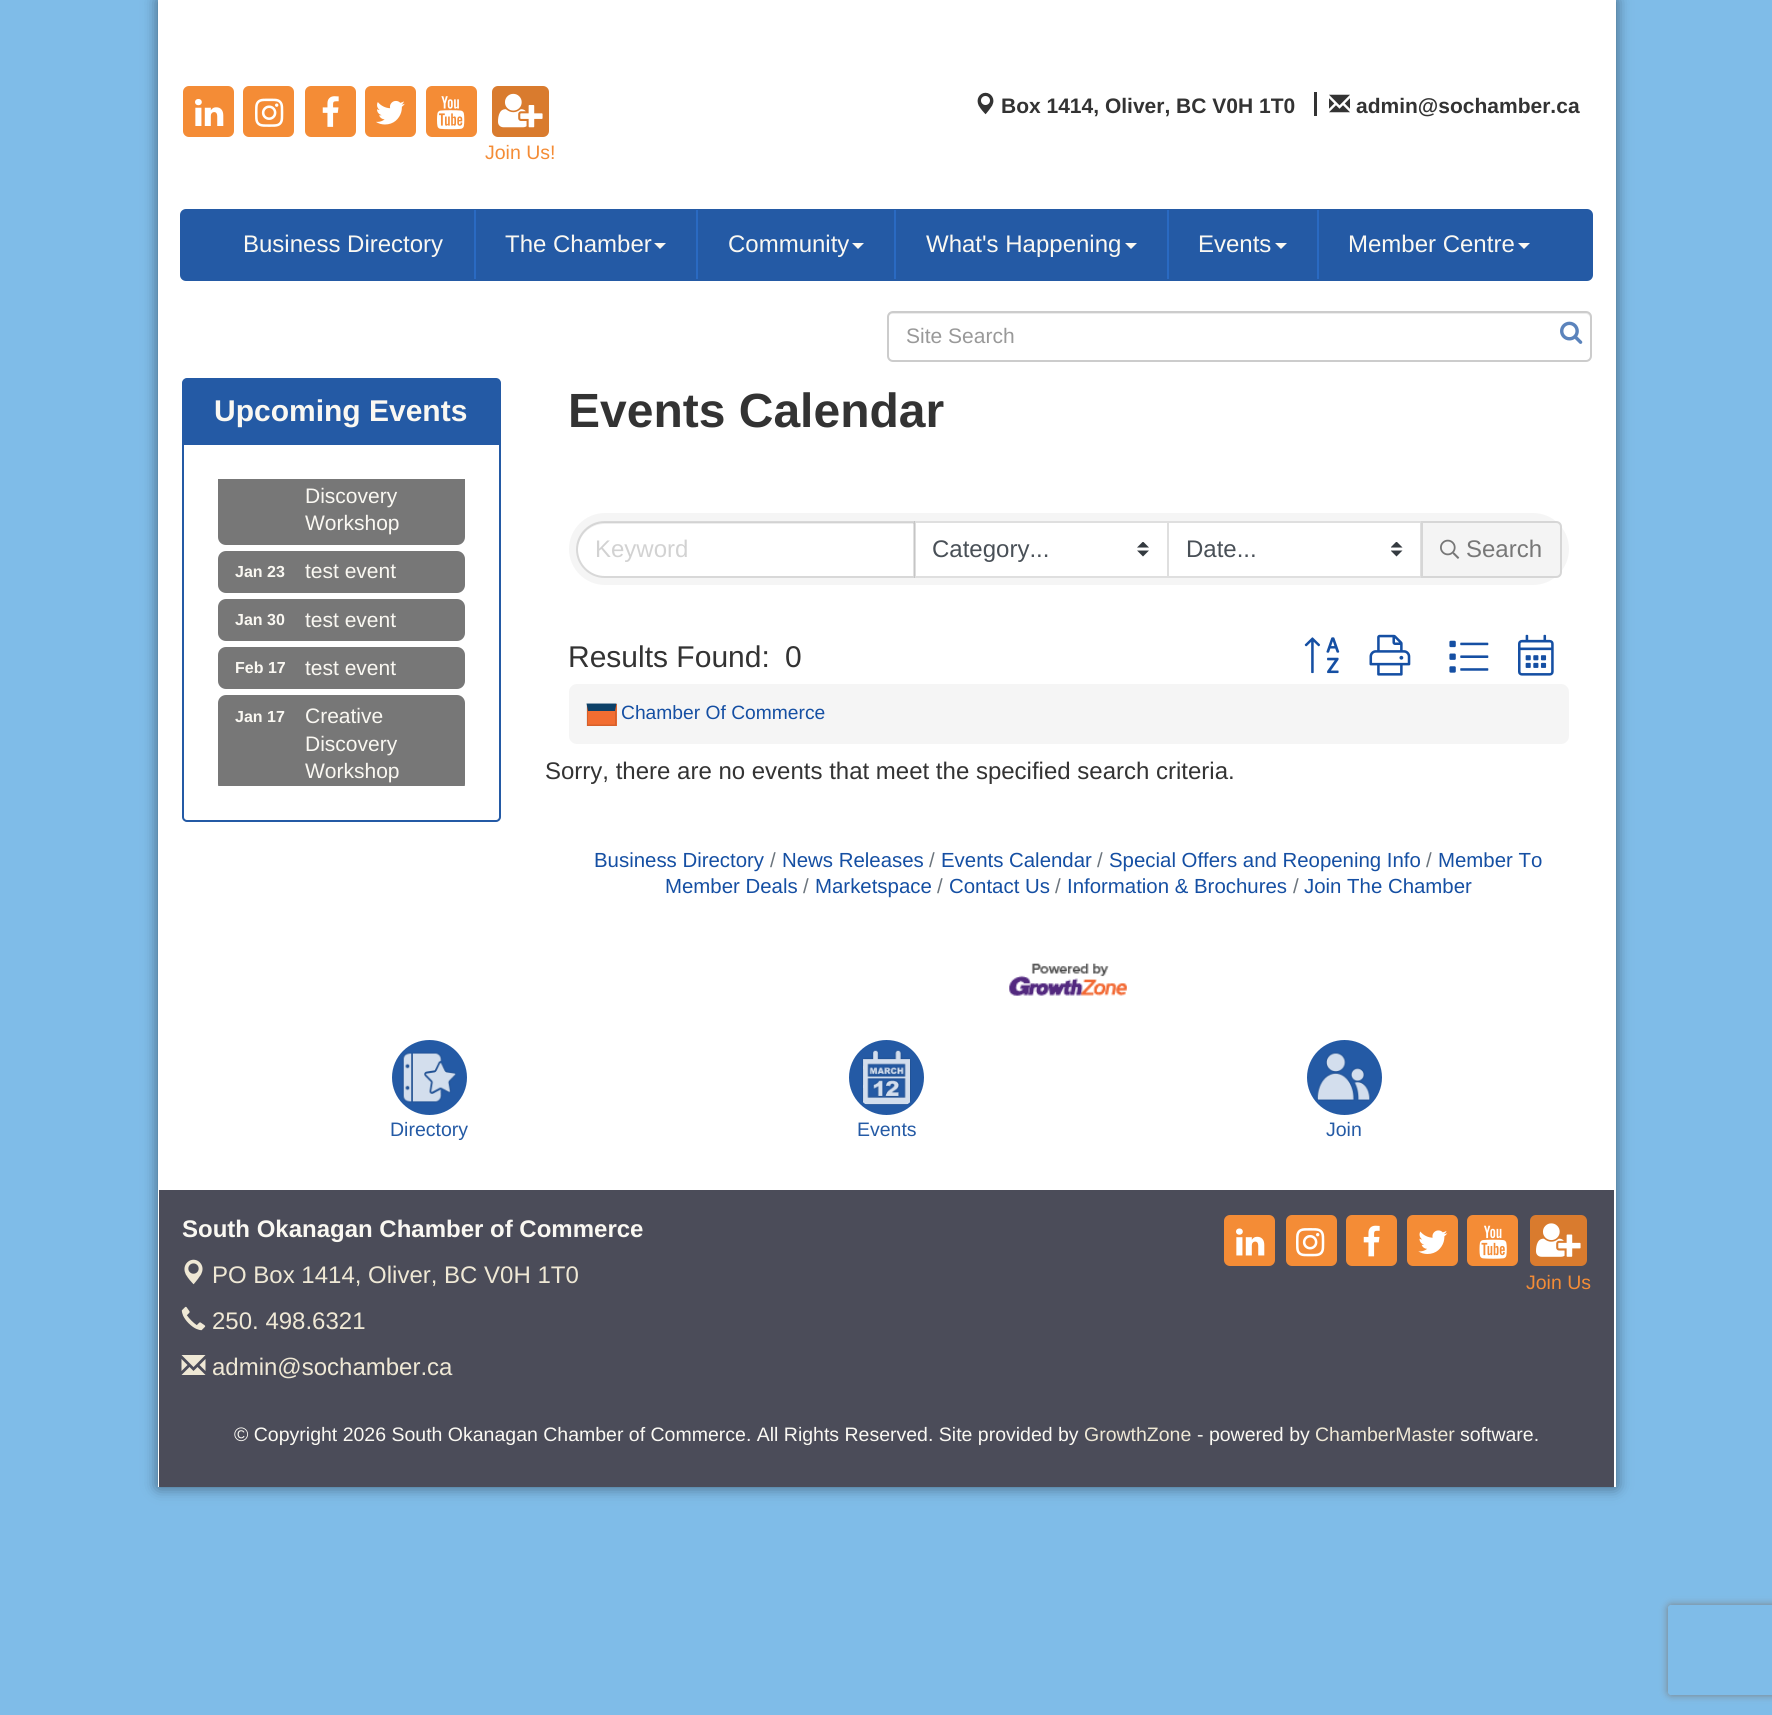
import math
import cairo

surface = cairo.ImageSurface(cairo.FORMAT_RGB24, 1772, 1715)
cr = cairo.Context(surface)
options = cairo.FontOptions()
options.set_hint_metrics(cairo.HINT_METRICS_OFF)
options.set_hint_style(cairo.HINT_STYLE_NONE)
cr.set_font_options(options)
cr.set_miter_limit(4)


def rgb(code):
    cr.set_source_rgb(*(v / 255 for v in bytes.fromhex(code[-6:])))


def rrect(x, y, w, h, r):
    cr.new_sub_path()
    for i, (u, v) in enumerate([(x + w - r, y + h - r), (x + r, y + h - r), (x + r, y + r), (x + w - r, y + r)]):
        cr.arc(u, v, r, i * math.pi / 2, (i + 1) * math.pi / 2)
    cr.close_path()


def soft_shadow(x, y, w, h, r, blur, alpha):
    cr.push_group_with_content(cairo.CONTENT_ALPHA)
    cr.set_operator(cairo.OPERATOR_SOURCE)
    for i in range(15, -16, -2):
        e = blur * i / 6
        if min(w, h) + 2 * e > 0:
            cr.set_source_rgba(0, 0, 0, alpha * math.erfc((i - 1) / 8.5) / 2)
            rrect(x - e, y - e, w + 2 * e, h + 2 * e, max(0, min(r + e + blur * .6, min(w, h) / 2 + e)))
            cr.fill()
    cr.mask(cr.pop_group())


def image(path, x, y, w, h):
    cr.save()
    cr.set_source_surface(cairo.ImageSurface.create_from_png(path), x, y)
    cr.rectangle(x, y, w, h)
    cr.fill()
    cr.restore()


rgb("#7fbce8")
cr.paint()
rgb("#000000")
soft_shadow(158, 0, 1458, 1487, 0, 7.5, 0.5)
rgb("#ffffff")
cr.rectangle(158, 0, 1458, 1487)
cr.fill()
image("img/1.png", 977, 92, 17, 23)
rgb("#333333")
cr.rectangle(1314, 92, 3, 24)
cr.fill()
image("img/2.png", 1329, 94, 21, 19)
rgb("#f48c36")
rrect(184, 87, 49, 49, 5)
cr.fill_preserve()
cr.stroke()
image("img/3.png", 195, 99, 29, 27)
rrect(244, 87, 49, 49, 5)
cr.fill_preserve()
cr.stroke()
image("img/4.png", 255, 98, 29, 29)
rrect(306, 87, 49, 49, 5)
cr.fill_preserve()
cr.stroke()
image("img/5.png", 322, 96, 17, 31)
rrect(366, 87, 49, 49, 5)
cr.fill_preserve()
cr.stroke()
image("img/6.png", 376, 100, 29, 25)
rrect(427, 87, 49, 49, 5)
cr.fill_preserve()
cr.stroke()
image("img/7.png", 437, 96, 28, 34)
rgb("#d97b2e")
rrect(492, 86, 57, 51, 6)
cr.fill()
image("img/8.png", 498, 93, 45, 35)
rgb("#245aa5")
rrect(181, 210, 1411, 70, 5)
cr.fill_preserve()
cr.stroke()
rgb("#2a6ac2")
cr.rectangle(474, 210, 2, 69)
cr.fill()
cr.rectangle(696, 210, 2, 69)
cr.fill()
rgb("#faf8f2")
cr.new_path()
cr.move_to(654, 243)
cr.line_to(666, 243)
cr.line_to(660, 249)
cr.close_path()
cr.fill()
rgb("#2a6ac2")
cr.rectangle(894, 210, 2, 69)
cr.fill()
rgb("#faf8f2")
cr.new_path()
cr.move_to(852, 243)
cr.line_to(864, 243)
cr.line_to(858, 249)
cr.close_path()
cr.fill()
rgb("#2a6ac2")
cr.rectangle(1167, 210, 2, 69)
cr.fill()
rgb("#faf8f2")
cr.new_path()
cr.move_to(1125, 243)
cr.line_to(1137, 243)
cr.line_to(1131, 249)
cr.close_path()
cr.fill()
rgb("#2a6ac2")
cr.rectangle(1317, 210, 2, 69)
cr.fill()
rgb("#faf8f2")
cr.new_path()
cr.move_to(1275, 243)
cr.line_to(1287, 243)
cr.line_to(1281, 249)
cr.close_path()
cr.fill()
cr.new_path()
cr.move_to(1518, 243)
cr.line_to(1530, 243)
cr.line_to(1524, 249)
cr.close_path()
cr.fill()
rgb("#ececec")
cr.new_path()
cr.move_to(892, 314)
cr.line_to(1586, 314)
cr.curve_to(1588, 314, 1590, 316, 1590, 318)
cr.line_to(1590, 317)
cr.curve_to(1590, 314, 1588, 312, 1585, 312)
cr.line_to(893, 312)
cr.curve_to(890, 312, 888, 314, 888, 317)
cr.line_to(888, 318)
cr.curve_to(888, 316, 890, 314, 892, 314)
cr.close_path()
cr.fill()
rrect(888, 312, 703, 49, 5)
rgb("#cccccc")
cr.stroke()
image("img/9.png", 1560, 321, 23, 23)
rrect(183, 379, 317, 442, 4)
rgb("#245aa5")
cr.stroke()
cr.rectangle(184, 380, 315, 63)
cr.fill()
cr.rectangle(183, 443, 317, 2)
cr.fill()
rgb("#777777")
cr.new_path()
cr.move_to(218, 479)
cr.line_to(465, 479)
cr.line_to(465, 537)
cr.curve_to(465, 541.5, 461.5, 545, 457, 545)
cr.line_to(226, 545)
cr.curve_to(221.5, 545, 218, 541.5, 218, 537)
cr.close_path()
cr.fill()
rrect(218, 551, 247, 42, 8)
cr.fill()
rrect(218, 599, 247, 42, 8)
cr.fill()
rrect(218, 647, 247, 42, 8)
cr.fill()
cr.save()
cr.rectangle(218, 479, 247, 307)
cr.clip()
rrect(218, 695, 247, 97, 8)
cr.fill()
cr.restore()
rgb("#f5f5f5")
rrect(569, 513, 1000, 72, 36)
cr.fill()
rgb("#ffffff")
cr.new_path()
cr.move_to(605, 522)
cr.line_to(914, 522)
cr.line_to(914, 576)
cr.line_to(605, 576)
cr.curve_to(590, 576, 578, 564, 578, 549)
cr.curve_to(578, 534, 590, 522, 605, 522)
cr.close_path()
cr.fill()
cr.set_source_rgba(0, 0, 0, 0.07)
cr.new_path()
cr.move_to(604, 524)
cr.line_to(914, 524)
cr.line_to(914, 522)
cr.line_to(605, 522)
cr.curve_to(590, 522, 578, 534, 578, 549)
cr.line_to(578, 550)
cr.curve_to(578, 536, 590, 524, 604, 524)
cr.close_path()
cr.fill()
rgb("#ffffff")
cr.rectangle(916, 523, 251, 53)
cr.fill()
image("img/10.png", 1137, 542, 12, 15)
cr.rectangle(915, 522, 253, 55)
rgb("#dfdfdf")
cr.stroke()
cr.new_path()
cr.move_to(604.5, 522)
cr.line_to(914, 522)
cr.line_to(914, 577)
cr.line_to(604.5, 577)
cr.curve_to(589.5, 577, 577, 564.5, 577, 549.5)
cr.curve_to(577, 534.5, 589.5, 522, 604.5, 522)
cr.close_path()
cr.set_source_rgba(0, 0, 0, 0.12)
cr.stroke()
rgb("#ffffff")
cr.rectangle(1169, 523, 251, 53)
cr.fill()
image("img/11.png", 1391, 542, 12, 15)
cr.rectangle(1168, 522, 253, 55)
rgb("#dfdfdf")
cr.stroke()
rgb("#f4f4f4")
cr.new_path()
cr.move_to(1422, 522)
cr.line_to(1556, 522)
cr.curve_to(1559, 522, 1561, 524, 1561, 527)
cr.line_to(1561, 572)
cr.curve_to(1561, 575, 1559, 577, 1556, 577)
cr.line_to(1422, 577)
cr.close_path()
cr.fill_preserve()
rgb("#d6d6d6")
cr.stroke()
image("img/12.png", 1440, 539, 20, 20)
image("img/13.png", 1304, 637, 36, 37)
image("img/14.png", 1369, 634, 42, 42)
image("img/15.png", 1449, 640, 40, 33)
image("img/16.png", 1518, 634, 36, 42)
rgb("#f5f5f5")
rrect(569, 684, 1000, 60, 8)
cr.fill()
rgb("#f26d31")
cr.rectangle(587, 704, 30, 22)
cr.fill()
rgb("#0d4168")
cr.new_path()
cr.move_to(586.5, 703.5)
cr.line_to(616.5, 703.5)
cr.line_to(615, 711)
cr.line_to(588, 711)
cr.close_path()
cr.fill()
cr.set_source_rgba(0, 0, 0, 0.12)
cr.new_path()
cr.move_to(616.5, 703.5)
cr.line_to(616.5, 726)
cr.line_to(615, 724.5)
cr.line_to(615, 711)
cr.close_path()
cr.fill()
cr.new_path()
cr.move_to(616.5, 726)
cr.line_to(586.5, 726)
cr.line_to(588, 724.5)
cr.line_to(615, 724.5)
cr.close_path()
cr.fill()
cr.new_path()
cr.move_to(586.5, 726)
cr.line_to(586.5, 703.5)
cr.line_to(588, 711)
cr.line_to(588, 724.5)
cr.close_path()
cr.fill()
image("img/17.png", 1009, 963, 118, 33)
rgb("#245aa5")
cr.arc(429.5, 1077.5, 36, 0, 2 * math.pi)
cr.fill_preserve()
cr.set_line_width(3)
cr.stroke()
image("img/18.png", 402, 1052, 54, 51)
cr.arc(886.5, 1077.5, 36, 0, 2 * math.pi)
cr.fill_preserve()
cr.stroke()
image("img/19.png", 862, 1050, 49, 55)
cr.arc(1344.5, 1077.5, 36, 0, 2 * math.pi)
cr.fill_preserve()
cr.stroke()
image("img/20.png", 1317, 1052, 54, 49)
rgb("#4b4c59")
cr.rectangle(159, 1190, 1455, 297)
cr.fill()
image("img/21.png", 184, 1259, 19, 26)
image("img/22.png", 181, 1306, 25, 25)
image("img/23.png", 181, 1355, 25, 20)
rgb("#f48c36")
rrect(1225, 1216, 49, 49, 5)
cr.fill_preserve()
cr.set_line_width(2)
cr.stroke()
image("img/24.png", 1236, 1228, 29, 28)
rrect(1287, 1216, 49, 49, 5)
cr.fill_preserve()
cr.stroke()
image("img/25.png", 1296, 1228, 29, 29)
rrect(1347, 1216, 49, 49, 5)
cr.fill_preserve()
cr.stroke()
image("img/26.png", 1363, 1225, 17, 32)
rrect(1408, 1216, 49, 49, 5)
cr.fill_preserve()
cr.stroke()
image("img/27.png", 1418, 1230, 30, 24)
rrect(1468, 1216, 49, 49, 5)
cr.fill_preserve()
cr.stroke()
image("img/28.png", 1479, 1225, 28, 34)
rgb("#d97b2e")
rrect(1530, 1215, 57, 51, 6)
cr.fill()
image("img/29.png", 1536, 1223, 45, 34)
cr.save()
cr.set_fill_rule(cairo.FILL_RULE_EVEN_ODD)
cr.new_path()
cr.move_to(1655, 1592)
cr.line_to(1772, 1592)
cr.line_to(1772, 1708)
cr.line_to(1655, 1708)
cr.close_path()
cr.move_to(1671, 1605)
cr.line_to(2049, 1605)
cr.curve_to(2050.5, 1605, 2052, 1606.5, 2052, 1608)
cr.line_to(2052, 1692)
cr.curve_to(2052, 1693.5, 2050.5, 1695, 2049, 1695)
cr.line_to(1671, 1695)
cr.curve_to(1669.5, 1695, 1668, 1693.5, 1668, 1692)
cr.line_to(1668, 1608)
cr.curve_to(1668, 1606.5, 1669.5, 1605, 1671, 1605)
cr.close_path()
cr.clip()
rgb("#808080")
soft_shadow(1668, 1605, 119, 90, 3, 4, 1)
cr.restore()
cr.select_font_face("Liberation Sans", cairo.FONT_SLANT_NORMAL, cairo.FONT_WEIGHT_BOLD)
cr.set_font_size(21)
rgb("#333333")
cr.move_to(1001, 113)
cr.show_text("Box 1414, Oliver, BC V0H 1T0")
cr.move_to(1356, 113)
cr.show_text("admin@sochamber.ca")
cr.select_font_face("Liberation Sans")
cr.set_font_size(19.5)
rgb("#f48c36")
cr.move_to(485, 159)
cr.show_text("Join Us!")
cr.set_font_size(24)
rgb("#faf8f2")
for x, y, s in [
    (243, 252, "Business Directory"),
    (505, 252, "The Chamber"),
    (728, 252, "Community"),
    (926, 252, "What's Happening"),
    (1198, 252, "Events"),
    (1348, 252, "Member Centre"),
]:
    cr.move_to(x, y)
    cr.show_text(s)
cr.set_font_size(21)
rgb("#999999")
cr.move_to(906, 343)
cr.show_text("Site Search")
cr.select_font_face("Liberation Sans", cairo.FONT_SLANT_NORMAL, cairo.FONT_WEIGHT_BOLD)
cr.set_font_size(30)
rgb("#faf8f2")
cr.move_to(214, 421)
cr.show_text("Upcoming Events")
cr.select_font_face("Liberation Sans")
cr.set_font_size(21)
cr.move_to(305, 503)
cr.show_text("Discovery")
cr.move_to(305, 530)
cr.show_text("Workshop")
cr.select_font_face("Liberation Sans", cairo.FONT_SLANT_NORMAL, cairo.FONT_WEIGHT_BOLD)
cr.set_font_size(16)
cr.move_to(235, 577)
cr.show_text("Jan 23")
cr.select_font_face("Liberation Sans")
cr.set_font_size(21)
cr.move_to(305, 578)
cr.show_text("test event")
cr.select_font_face("Liberation Sans", cairo.FONT_SLANT_NORMAL, cairo.FONT_WEIGHT_BOLD)
cr.set_font_size(16)
cr.move_to(235, 625)
cr.show_text("Jan 30")
cr.select_font_face("Liberation Sans")
cr.set_font_size(21)
cr.move_to(305, 627)
cr.show_text("test event")
cr.select_font_face("Liberation Sans", cairo.FONT_SLANT_NORMAL, cairo.FONT_WEIGHT_BOLD)
cr.set_font_size(16)
cr.move_to(235, 673)
cr.show_text("Feb 17")
cr.select_font_face("Liberation Sans")
cr.set_font_size(21)
cr.move_to(305, 675)
cr.show_text("test event")
cr.select_font_face("Liberation Sans", cairo.FONT_SLANT_NORMAL, cairo.FONT_WEIGHT_BOLD)
cr.set_font_size(16)
cr.move_to(235, 722)
cr.show_text("Jan 17")
cr.select_font_face("Liberation Sans")
cr.set_font_size(21)
for x, y, s in [
    (305, 723, "Creative"),
    (305, 751, "Discovery"),
    (305, 778, "Workshop"),
]:
    cr.move_to(x, y)
    cr.show_text(s)
cr.select_font_face("Liberation Sans", cairo.FONT_SLANT_NORMAL, cairo.FONT_WEIGHT_BOLD)
cr.set_font_size(48)
rgb("#333333")
cr.move_to(568, 427)
cr.show_text("Events Calendar")
cr.select_font_face("Liberation Sans")
cr.set_font_size(24)
rgb("#d2d2d2")
cr.move_to(595, 557)
cr.show_text("Keyword")
rgb("#495057")
cr.move_to(932, 557)
cr.show_text("Category...")
cr.move_to(1186, 557)
cr.show_text("Date...")
rgb("#777777")
cr.move_to(1466, 557)
cr.show_text("Search")
cr.set_font_size(30)
rgb("#333333")
cr.move_to(568, 667)
cr.show_text("Results Found:")
cr.move_to(785, 667)
cr.show_text("0")
cr.set_font_size(19.25)
rgb("#154fa3")
cr.move_to(621, 719)
cr.show_text("Chamber Of Commerce")
cr.set_font_size(24)
rgb("#333333")
cr.move_to(545, 779)
cr.show_text("Sorry, there are no events that meet the specified search criteria.")
cr.set_font_size(20.4)
rgb("#154fa3")
cr.move_to(594, 867)
cr.show_text("Business Directory")
rgb("#6c757d")
cr.move_to(1426, 867)
cr.show_text("/")
rgb("#154fa3")
cr.move_to(1438, 867)
cr.show_text("Member To")
cr.move_to(665, 893)
cr.show_text("Member Deals")
rgb("#6c757d")
cr.move_to(770, 867)
cr.show_text("/")
rgb("#154fa3")
cr.move_to(782, 867)
cr.show_text("News Releases")
rgb("#6c757d")
cr.move_to(929, 867)
cr.show_text("/")
rgb("#154fa3")
cr.move_to(941, 867)
cr.show_text("Events Calendar")
rgb("#6c757d")
cr.move_to(1097, 867)
cr.show_text("/")
rgb("#154fa3")
cr.move_to(1109, 867)
cr.show_text("Special Offers and Reopening Info")
rgb("#6c757d")
cr.move_to(803, 893)
cr.show_text("/")
rgb("#154fa3")
cr.move_to(815, 893)
cr.show_text("Marketspace")
rgb("#6c757d")
cr.move_to(937, 893)
cr.show_text("/")
rgb("#154fa3")
cr.move_to(949, 893)
cr.show_text("Contact Us")
rgb("#6c757d")
cr.move_to(1055, 893)
cr.show_text("/")
rgb("#154fa3")
cr.move_to(1067, 893)
cr.show_text("Information & Brochures")
rgb("#6c757d")
cr.move_to(1293, 893)
cr.show_text("/")
rgb("#154fa3")
cr.move_to(1304, 893)
cr.show_text("Join The Chamber")
cr.set_font_size(19.5)
rgb("#245aa5")
for x, y, s in [
    (390, 1136, "Directory"),
    (857, 1136, "Events"),
    (1326, 1136, "Join"),
]:
    cr.move_to(x, y)
    cr.show_text(s)
cr.select_font_face("Liberation Sans", cairo.FONT_SLANT_NORMAL, cairo.FONT_WEIGHT_BOLD)
cr.set_font_size(24)
rgb("#faf8f2")
cr.move_to(182, 1237)
cr.show_text("South Okanagan Chamber of Commerce")
cr.select_font_face("Liberation Sans")
rgb("#efe8d5")
for x, y, s in [
    (212, 1283, "PO Box 1414, Oliver, BC V0H 1T0"),
    (212, 1329, "250. 498.6321"),
    (212, 1375, "admin@sochamber.ca"),
]:
    cr.move_to(x, y)
    cr.show_text(s)
cr.set_font_size(19.5)
rgb("#f48c36")
cr.move_to(1526, 1289)
cr.show_text("Join Us")
rgb("#faf8f2")
cr.move_to(234, 1441)
cr.show_text("© Copyright 2026 South Okanagan Chamber of Commerce. All Rights Reserved. Site provided by")
rgb("#efe8d5")
cr.move_to(1084, 1441)
cr.show_text("GrowthZone")
rgb("#faf8f2")
cr.move_to(1197, 1441)
cr.show_text("- powered by")
rgb("#efe8d5")
cr.move_to(1315, 1441)
cr.show_text("ChamberMaster")
rgb("#faf8f2")
cr.move_to(1460, 1441)
cr.show_text("software.")
surface.write_to_png("page.png")
